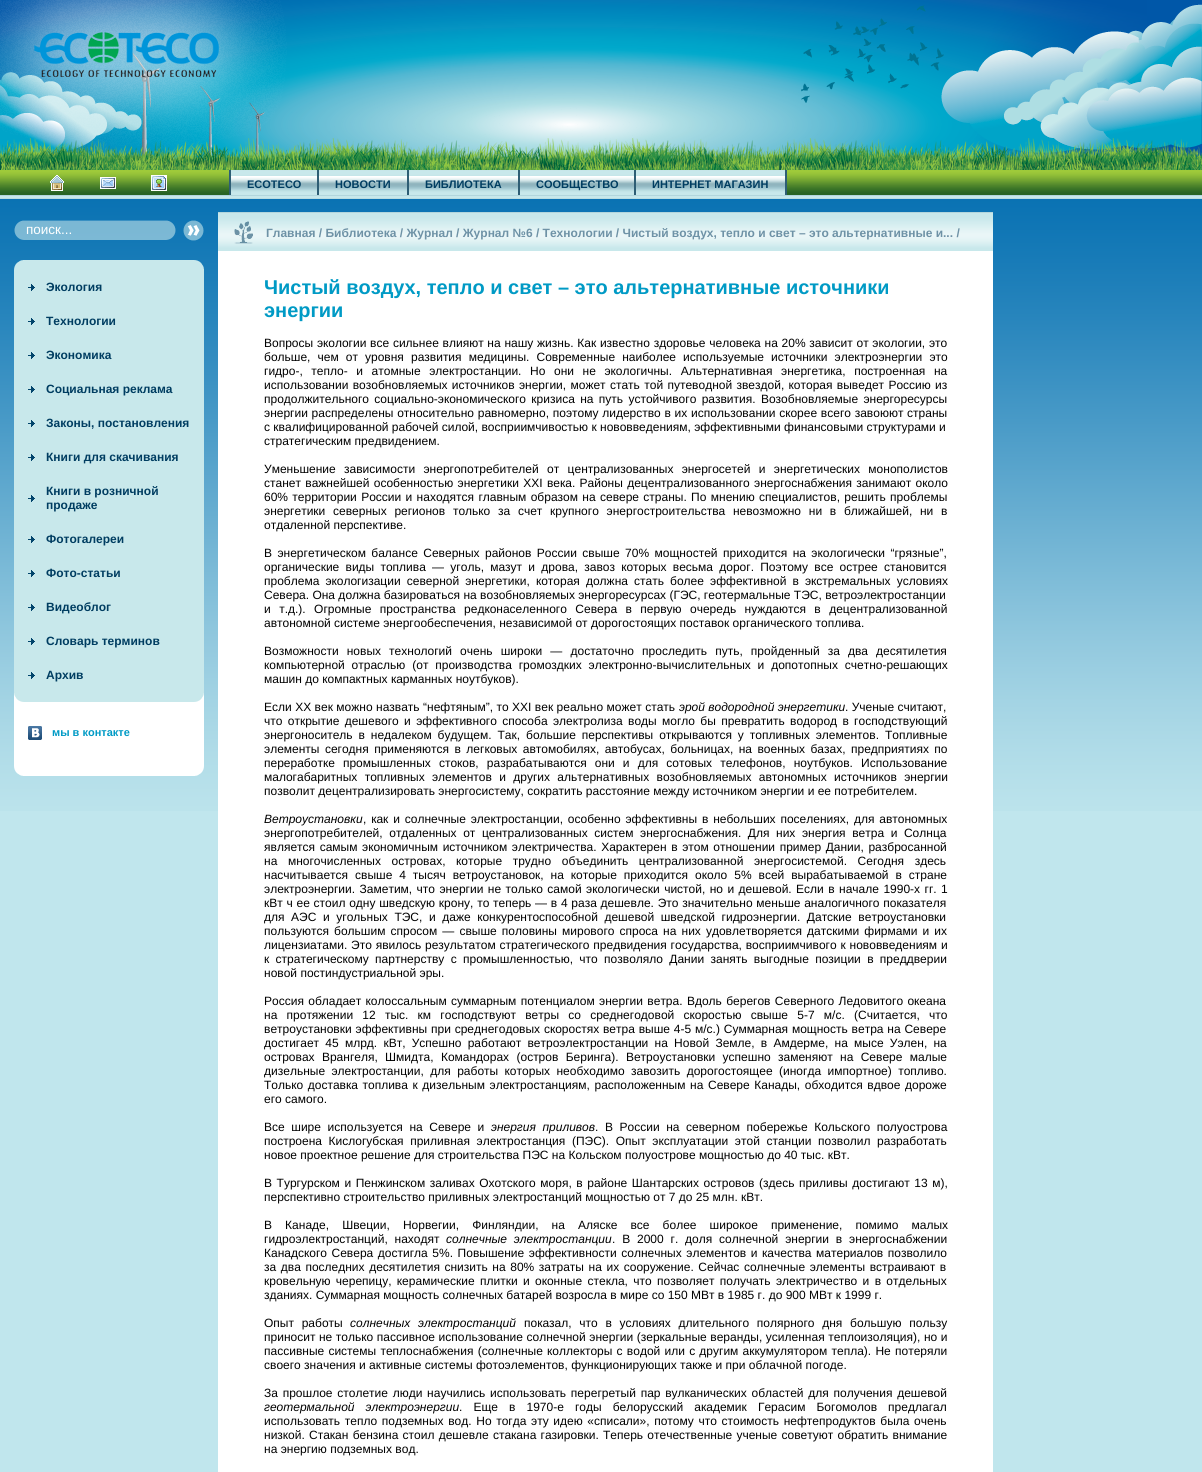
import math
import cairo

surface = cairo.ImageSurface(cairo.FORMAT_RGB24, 1202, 1472)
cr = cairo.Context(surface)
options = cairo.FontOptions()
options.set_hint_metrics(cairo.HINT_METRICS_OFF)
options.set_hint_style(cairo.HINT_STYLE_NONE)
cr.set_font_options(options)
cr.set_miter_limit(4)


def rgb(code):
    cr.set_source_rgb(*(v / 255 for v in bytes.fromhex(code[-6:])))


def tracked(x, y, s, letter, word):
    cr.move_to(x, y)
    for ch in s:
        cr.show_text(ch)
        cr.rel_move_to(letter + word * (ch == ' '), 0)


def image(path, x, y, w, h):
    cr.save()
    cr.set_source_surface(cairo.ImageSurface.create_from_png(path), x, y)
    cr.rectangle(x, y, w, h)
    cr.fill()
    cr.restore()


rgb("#c0e6ed")
cr.paint()
image("img/1.png", 0, 199, 1202, 612)
rgb("#0057a8")
cr.rectangle(1147, 0, 55, 161)
cr.fill()
image("img/2.png", 0, 0, 1147, 170)
image("img/3.png", 801, 4, 401, 149)
image("img/4.png", 0, 138, 1202, 32)
image("img/5.png", 0, 170, 1202, 29)
image("img/6.png", 50, 175, 14, 16)
image("img/7.png", 100, 177, 16, 12)
image("img/8.png", 151, 175, 16, 16)
rgb("#2e5e75")
cr.rectangle(229, 170, 558, 25)
cr.fill()
image("img/9.png", 231, 170, 86, 25)
image("img/10.png", 319, 170, 88, 25)
image("img/11.png", 409, 170, 109, 25)
image("img/12.png", 520, 170, 114, 25)
image("img/13.png", 636, 170, 149, 25)
image("img/14.png", 14, 220, 190, 21)
image("img/15.png", 14, 260, 10, 10)
rgb("#c8e8eb")
cr.rectangle(24, 260, 170, 10)
cr.fill()
image("img/16.png", 194, 260, 10, 10)
cr.rectangle(14, 270, 190, 422)
cr.fill()
image("img/17.png", 28, 284, 7, 7)
image("img/17.png", 28, 318, 7, 7)
image("img/17.png", 28, 352, 7, 7)
image("img/17.png", 28, 386, 7, 7)
image("img/17.png", 28, 420, 7, 7)
image("img/17.png", 28, 454, 7, 7)
image("img/17.png", 28, 495, 7, 7)
image("img/17.png", 28, 536, 7, 7)
image("img/17.png", 28, 570, 7, 7)
image("img/17.png", 28, 604, 7, 7)
image("img/17.png", 28, 638, 7, 7)
image("img/17.png", 28, 672, 7, 7)
image("img/18.png", 14, 692, 10, 10)
cr.rectangle(24, 692, 170, 10)
cr.fill()
image("img/19.png", 194, 692, 10, 10)
rgb("#ffffff")
cr.rectangle(14, 702, 190, 64)
cr.fill()
image("img/20.png", 28, 726, 14, 14)
image("img/21.png", 14, 766, 10, 10)
cr.rectangle(24, 766, 170, 10)
cr.fill()
image("img/22.png", 194, 766, 10, 10)
image("img/23.png", 218, 212, 775, 39)
image("img/24.png", 234, 221, 19, 23)
cr.rectangle(218, 251, 775, 1221)
cr.fill()
cr.select_font_face("Liberation Sans", cairo.FONT_SLANT_NORMAL, cairo.FONT_WEIGHT_BOLD)
cr.set_font_size(11)
rgb("#003d61")
for x, y, s in [
    (247, 188, "ECOTECO"),
    (335, 188, "НОВОСТИ"),
    (425, 188, "БИБЛИОТЕКА"),
    (536, 188, "СООБЩЕСТВО"),
    (652, 188, "ИНТЕРНЕТ МАГАЗИН"),
]:
    cr.move_to(x, y)
    cr.show_text(s)
cr.select_font_face("Liberation Sans")
cr.set_font_size(13.5)
rgb("#ffffff")
cr.move_to(26, 234)
cr.show_text("поиск...")
cr.select_font_face("Liberation Sans", cairo.FONT_SLANT_NORMAL, cairo.FONT_WEIGHT_BOLD)
cr.set_font_size(12)
rgb("#003d61")
for x, y, s in [
    (46, 291, "Экология"),
    (46, 325, "Технологии"),
    (46, 359, "Экономика"),
    (46, 393, "Социальная реклама"),
    (46, 427, "Законы, постановления"),
    (46, 461, "Книги для скачивания"),
    (46, 495, "Книги в розничной"),
    (46, 509, "продаже"),
    (46, 543, "Фотогалереи"),
    (46, 577, "Фото-статьи"),
    (46, 611, "Видеоблог"),
    (46, 645, "Словарь терминов"),
    (46, 679, "Архив"),
]:
    cr.move_to(x, y)
    cr.show_text(s)
cr.set_font_size(11)
rgb("#009ac5")
cr.move_to(52, 736)
cr.show_text("мы в контакте")
cr.set_font_size(12)
rgb("#6e92a6")
cr.move_to(266, 237)
cr.show_text("Главная / Библиотека / Журнал / Журнал №6 / Технологии / Чистый воздух, тепло и свет – это альтернативные и... /")
cr.set_font_size(20)
rgb("#009ac5")
cr.move_to(264, 294)
cr.show_text("Чистый воздух, тепло и свет – это альтернативные источники")
cr.move_to(264, 317)
cr.show_text("энергии")
cr.select_font_face("Liberation Sans")
cr.set_font_size(12)
rgb("#000000")
tracked(264, 347, "Вопросы экологии все сильнее влияют на нашу жизнь. Как известно здоровье человека на 20% зависит от экологии, это", 0, 0.4)
tracked(264, 361, "больше, чем от уровня развития медицины. Современные наиболее используемые источники электроэнергии это", 0, 3.75)
tracked(264, 375, "гидро-, тепло- и атомные электростанции. Но они не экологичны. Альтернативная энергетика, построенная на", 0, 5.25)
tracked(264, 389, "использовании возобновляемых источников энергии, может стать той путеводной звездой, которая выведет Россию из", 0, 1)
tracked(264, 403, "продолжительного социально-экономического кризиса на путь устойчивого развития. Возобновляемые энергоресурсы", 0, 2)
tracked(264, 417, "энергии распределены относительно равномерно, поэтому лидерство в их использовании скорее всего завоюют страны", 0, 0.4)
cr.move_to(264, 431)
cr.show_text("с квалифицированной рабочей силой, восприимчивостью к нововведениям, эффективными финансовыми структурами и")
cr.move_to(264, 445)
cr.show_text("стратегическим предвидением.")
tracked(264, 473, "Уменьшение зависимости энергопотребителей от централизованных энергосетей и энергетических монополистов", 0, 5)
tracked(264, 487, "станет важнейшей особенностью энергетики XXI века. Районы децентрализованного энергоснабжения занимают около", 0, 1)
tracked(264, 501, "60% территории России и находятся главным образом на севере страны. По мнению специалистов, решить проблемы", 0, 1)
tracked(264, 515, "энергетики северных регионов только за счет крупного энергостроительства невозможно ни в ближайшей, ни в", 0, 4.4)
cr.move_to(264, 529)
cr.show_text("отдаленной перспективе.")
tracked(264, 557, "В энергетическом балансе Северных районов России свыше 70% мощностей приходится на экологически “грязные”,", 0, 2.1)
tracked(264, 571, "органические виды топлива — уголь, мазут и дрова, завоз которых весьма дорог. Поэтому все острее становится", 0, 2.9)
tracked(264, 585, "проблема экологизации северной энергетики, которая должна стать более эффективной в экстремальных условиях", 0, 2.75)
cr.move_to(264, 599)
cr.show_text("Севера. Она должна базироваться на возобновляемых энергоресурсах (ГЭС, геотермальные ТЭС, ветроэлектростанции")
tracked(264, 613, "и т.д.). Огромные пространства редконаселенного Севера в первую очередь нуждаются в децентрализованной", 0, 5.1)
cr.move_to(264, 627)
cr.show_text("автономной системе энергообеспечения, независимой от дорогостоящих поставок органического топлива.")
tracked(264, 655, "Возможности новых технологий очень широки — достаточно проследить путь, пройденный за два десятилетия", 0, 4.75)
tracked(264, 669, "компьютерной отраслью (от производства громоздких электронно-вычислительных и допотопных счетно-решающих", 0, 3.5)
cr.move_to(264, 683)
cr.show_text("машин до компактных карманных ноутбуков).")
tracked(264, 711, "Если XX век можно назвать “нефтяным”, то XXI век реально может стать", 0, 0.1)
cr.select_font_face("Liberation Sans", cairo.FONT_SLANT_ITALIC)
cr.move_to(679, 711)
cr.show_text("эрой водородной энергетики")
cr.select_font_face("Liberation Sans")
cr.move_to(845, 711)
cr.show_text(". Ученые считают,")
tracked(264, 725, "что открытие дешевого и эффективного способа электролиза воды могло бы превратить водород в господствующий", 0, 2)
tracked(264, 739, "энергоноситель в недалеком будущем. Так, большие перспективы открываются у топливных элементов. Топливные", 0, 2.6)
tracked(264, 753, "элементы сегодня применяются в легковых автомобилях, автобусах, больницах, на военных базах, предприятиях по", 0, 2.1)
tracked(264, 767, "переработке промышленных стоков, разрабатываются они и для сотовых телефонов, ноутбуков. Использование", 0, 4.75)
tracked(264, 781, "малогабаритных топливных элементов и других альтернативных возобновляемых автономных источников энергии", 0, 4)
cr.move_to(264, 795)
cr.show_text("позволит децентрализировать энергосистему, сократить расстояние между источником энергии и ее потребителем.")
cr.select_font_face("Liberation Sans", cairo.FONT_SLANT_ITALIC)
cr.move_to(264, 823)
cr.show_text("Ветроустановки")
cr.select_font_face("Liberation Sans")
tracked(363, 823, ", как и солнечные электростанции, особенно эффективны в небольших поселениях, для автономных", 0, 1.5)
tracked(264, 837, "энергопотребителей, отдаленных от централизованных систем энергоснабжения. Для них энергия ветра и Солнца", 0, 3.25)
tracked(264, 851, "является самым экономичным источником электричества. Характерен в этом отношении пример Дании, разбросанной", 0, 1.25)
tracked(264, 865, "на многочисленных островах, которые трудно объединить централизованной энергосистемой. Сегодня здесь", 0, 7.25)
tracked(264, 879, "насчитывается свыше 4 тысяч ветроустановок, на которые приходится около 5% всей вырабатываемой в стране", 0, 3.6)
tracked(264, 893, "электроэнергии. Заметим, что энергии не только самой экологически чистой, но и дешевой. Если в начале 1990-х гг. 1", 0, 1.1)
tracked(264, 907, "кВт ч ее стоил одну шведскую крону, то теперь — в 4 раза дешевле. Это значительно меньше аналогичного показателя", 0, 0.4)
tracked(264, 921, "для АЭС и угольных ТЭС, и даже конкурентоспособной дешевой шведской гидроэнергии. Датские ветроустановки", 0, 3.25)
tracked(264, 935, "пользуются большим спросом — свыше половины мирового спроса на них удовлетворяется датскими фирмами и их", 0, 1.75)
tracked(264, 949, "лицензиатами. Это явилось результатом стратегического предвидения государства, восприимчивого к нововведениям и", 0, 0.5)
tracked(264, 963, "к стратегическому партнерству с промышленностью, что позволяло Дании занять выгодные позиции в преддверии", 0, 3)
cr.move_to(264, 977)
cr.show_text("новой постиндустриальной эры.")
tracked(264, 1005, "Россия обладает колоссальным суммарным потенциалом энергии ветра. Вдоль берегов Северного Ледовитого океана", 0, 1)
tracked(264, 1019, "на протяжении 12 тыс. км господствуют ветры со среднегодовой скоростью свыше 5-7 м/с. (Считается, что", 0, 5.9)
tracked(264, 1033, "ветроустановки эффективны при среднегодовых скоростях ветра выше 4-5 м/с.) Суммарная мощность ветра на Севере", 0, 0.5)
tracked(264, 1047, "достигает 45 млрд. кВт, Успешно работают ветроэлектростанции на Новой Земле, в Амдерме, на мысе Уэлен, на", 0, 2.9)
tracked(264, 1061, "островах Врангеля, Шмидта, Командорах (остров Беринга). Ветроустановки успешно заменяют на Севере малые", 0, 4)
tracked(264, 1075, "дизельные электростанции, для работы которых необходимо завозить дорогостоящее (иногда импортное) топливо.", 0, 3.1)
tracked(264, 1089, "Только доставка топлива к дизельным электростанциям, расположенным на Севере Канады, обходится вдвое дороже", 0, 1.25)
cr.move_to(264, 1103)
cr.show_text("его самого.")
tracked(264, 1131, "Все шире используется на Севере и", 0, 3.25)
cr.select_font_face("Liberation Sans", cairo.FONT_SLANT_ITALIC)
tracked(491, 1131, "энергия приливов", 0, 3.25)
cr.select_font_face("Liberation Sans")
tracked(595, 1131, ". В России на северном побережье Кольского полуострова", 0, 3.25)
tracked(264, 1145, "построена Кислогубская приливная электростанция (ПЭС). Опыт эксплуатации этой станции позволил разработать", 0, 3.25)
cr.move_to(264, 1159)
cr.show_text("новое проектное решение для строительства ПЭС на Кольском полуострове мощностью до 40 тыс. кВт.")
tracked(264, 1187, "В Тургурском и Пенжинском заливах Охотского моря, в районе Шантарских островов (здесь приливы достигают 13 м),", 0, 1.25)
cr.move_to(264, 1201)
cr.show_text("перспективно строительство приливных электростанций мощностью от 7 до 25 млн. кВт.")
tracked(264, 1229, "В Канаде, Швеции, Норвегии, Финляндии, на Аляске все более широкое применение, помимо малых", 0, 9.75)
tracked(264, 1243, "гидроэлектростанций, находят", 0, 3.5)
cr.select_font_face("Liberation Sans", cairo.FONT_SLANT_ITALIC)
tracked(446, 1243, "солнечные электростанции", 0, 3.5)
cr.select_font_face("Liberation Sans")
tracked(612, 1243, ". В 2000 г. доля солнечной энергии в энергоснабжении", 0, 3.5)
tracked(264, 1257, "Канадского Севера достигла 5%. Повышение эффективности солнечных элементов и качества материалов позволило", 0, 1.25)
tracked(264, 1271, "за два последних десятилетия снизить на 80% затраты на их сооружение. Сейчас солнечные элементы встраивают в", 0, 1.25)
tracked(264, 1285, "кровельную черепицу, керамические плитки и оконные стекла, что позволяет получать электричество и в отдельных", 0, 2)
cr.move_to(264, 1299)
cr.show_text("зданиях. Суммарная мощность солнечных батарей возросла в мире со 150 МВт в 1985 г. до 900 МВт к 1999 г.")
tracked(264, 1327, "Опыт работы", 0, 4.4)
cr.select_font_face("Liberation Sans", cairo.FONT_SLANT_ITALIC)
tracked(350, 1327, "солнечных электростанций", 0, 4.4)
cr.select_font_face("Liberation Sans")
tracked(524, 1327, "показал, что в условиях длительного полярного дня большую пользу", 0, 4.4)
tracked(264, 1341, "приносит не только пассивное использование солнечной энергии (зеркальные веранды, усиленная теплоизоляция), но и", 0, 0.25)
tracked(264, 1355, "пассивные системы теплоснабжения (солнечные коллекторы с водой или с другим аккумулятором тепла). Не потеряли", 0, 0.9)
cr.move_to(264, 1369)
cr.show_text("своего значения и активные системы фотоэлементов, функционирующих также и при облачной погоде.")
tracked(264, 1397, "За прошлое столетие люди научились использовать перегретый пар вулканических областей для получения дешевой", 0, 1.4)
cr.select_font_face("Liberation Sans", cairo.FONT_SLANT_ITALIC)
tracked(264, 1411, "геотермальной электроэнергии", 0, 7.75)
cr.select_font_face("Liberation Sans")
tracked(459, 1411, ". Еще в 1970-е годы белорусский академик Герасим Богомолов предлагал", 0, 7.75)
tracked(264, 1425, "использовать тепло подземных вод. Но тогда эту идею «списали», потому что стоимость нефтепродуктов была очень", 0, 1.3)
tracked(264, 1439, "низкой. Стакан бензина стоил дешевле стакана газировки. Теперь отечественные ученые советуют обратить внимание", 0, 0.9)
cr.move_to(264, 1453)
cr.show_text("на энергию подземных вод.")
surface.write_to_png("page.png")
